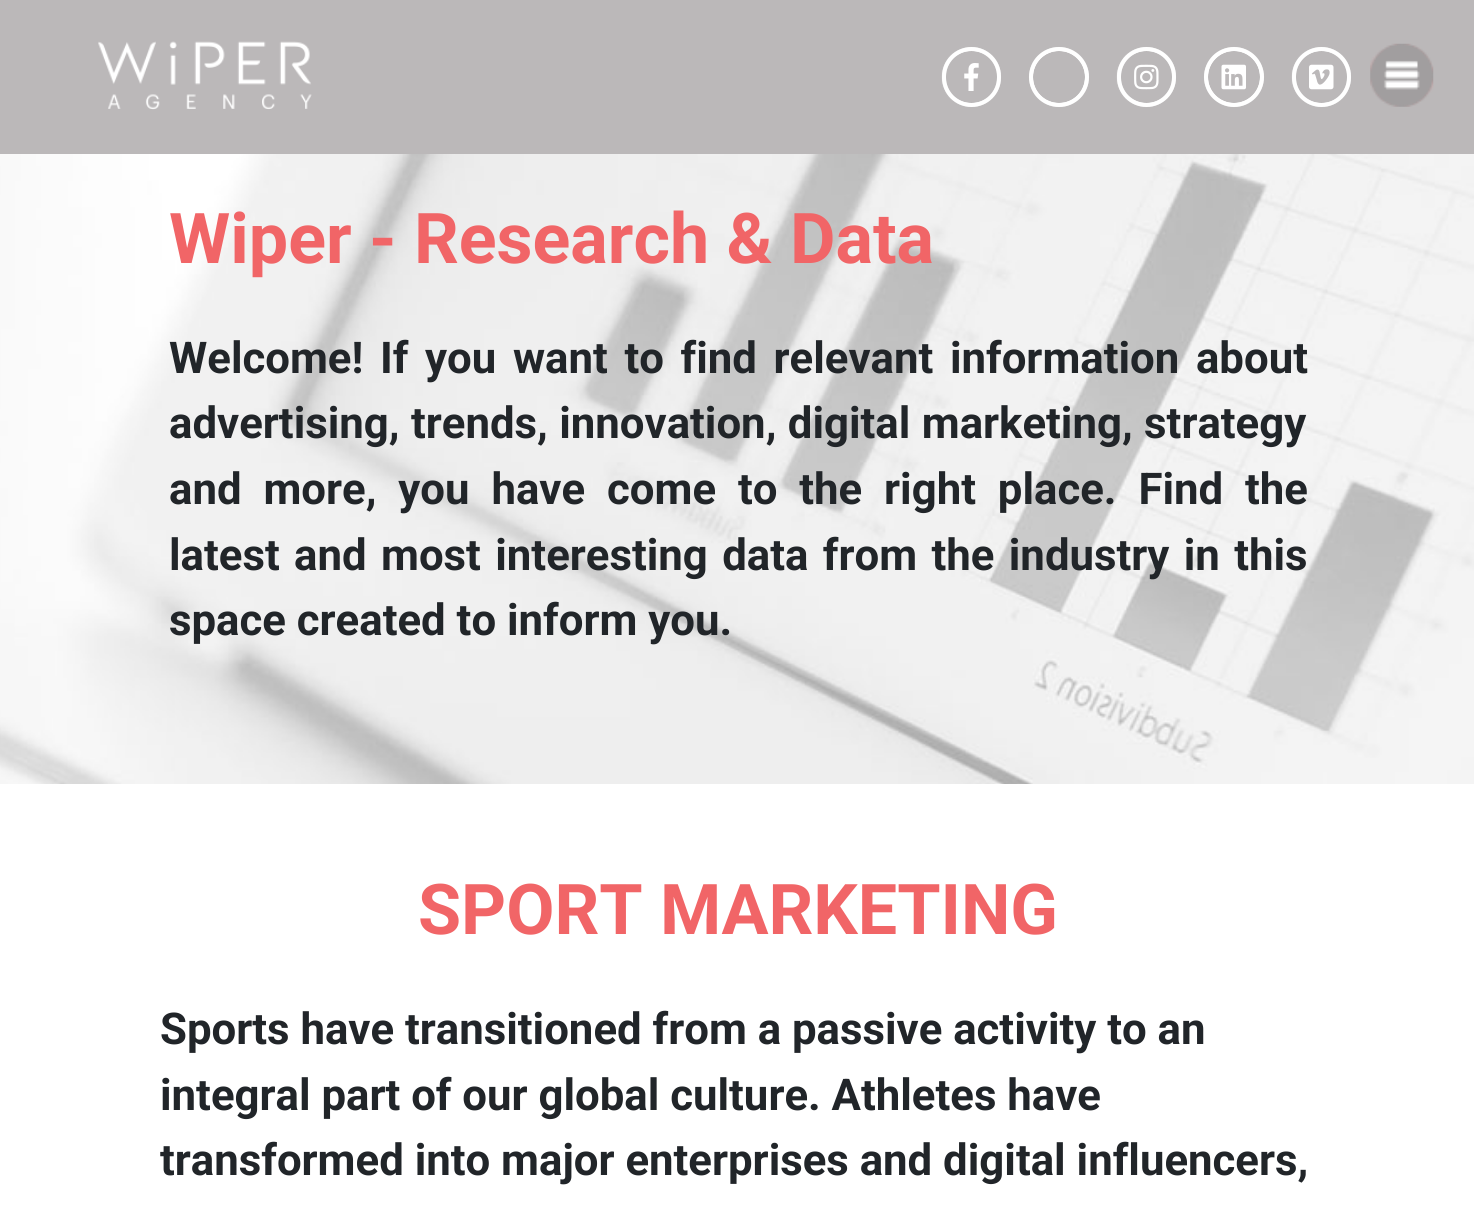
import math
import cairo

surface = cairo.ImageSurface(cairo.FORMAT_RGB24, 1474, 1218)
cr = cairo.Context(surface)
options = cairo.FontOptions()
options.set_hint_metrics(cairo.HINT_METRICS_OFF)
options.set_hint_style(cairo.HINT_STYLE_NONE)
cr.set_font_options(options)
cr.set_miter_limit(4)


def rgb(code):
    cr.set_source_rgb(*(v / 255 for v in bytes.fromhex(code[-6:])))


def tracked(x, y, s, letter, word):
    cr.move_to(x, y)
    for ch in s:
        cr.show_text(ch)
        cr.rel_move_to(letter + word * (ch == ' '), 0)


def rrect(x, y, w, h, r):
    cr.new_sub_path()
    for i, (u, v) in enumerate([(x + w - r, y + h - r), (x + r, y + h - r), (x + r, y + r), (x + w - r, y + r)]):
        cr.arc(u, v, r, i * math.pi / 2, (i + 1) * math.pi / 2)
    cr.close_path()


def soft_shadow(x, y, w, h, r, blur, alpha):
    cr.push_group_with_content(cairo.CONTENT_ALPHA)
    cr.set_operator(cairo.OPERATOR_SOURCE)
    for i in range(15, -16, -2):
        e = blur * i / 6
        if min(w, h) + 2 * e > 0:
            cr.set_source_rgba(0, 0, 0, alpha * math.erfc((i - 1) / 8.5) / 2)
            rrect(x - e, y - e, w + 2 * e, h + 2 * e, max(0, min(r + e + blur * .6, min(w, h) / 2 + e)))
            cr.fill()
    cr.mask(cr.pop_group())


def image(path, x, y, w, h):
    cr.save()
    cr.set_source_surface(cairo.ImageSurface.create_from_png(path), x, y)
    cr.rectangle(x, y, w, h)
    cr.fill()
    cr.restore()


rgb("#ffffff")
cr.paint()
rgb("#bbb8b9")
cr.rectangle(0, 0, 1474, 154)
cr.fill()
image("img/1.png", 98, 41, 214, 69)
rrect(944, 49, 55, 56, 27.5)
rgb("#ffffff")
cr.set_line_width(4)
cr.stroke()
cr.save()
cr.set_fill_rule(cairo.FILL_RULE_EVEN_ODD)
cr.new_path()
cr.move_to(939, 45)
cr.line_to(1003, 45)
cr.line_to(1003, 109)
cr.line_to(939, 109)
cr.close_path()
cr.move_to(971, 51)
cr.line_to(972, 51)
cr.curve_to(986.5, 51, 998, 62.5, 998, 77)
cr.curve_to(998, 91.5, 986.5, 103, 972, 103)
cr.line_to(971, 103)
cr.curve_to(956.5, 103, 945, 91.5, 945, 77)
cr.curve_to(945, 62.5, 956.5, 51, 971, 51)
cr.close_path()
cr.clip()
rgb("#ffffff")
soft_shadow(943, 49, 56, 56, 28, 1, 1)
cr.restore()
rrect(944, 49, 55, 56, 27.5)
cr.set_source_rgba(1, 1, 1, 0.4)
cr.stroke()
image("img/2.png", 964, 63, 15, 28)
cr.arc(1059, 77, 28, 0, 2 * math.pi)
rgb("#ffffff")
cr.stroke()
cr.save()
cr.set_fill_rule(cairo.FILL_RULE_EVEN_ODD)
cr.new_path()
cr.move_to(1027, 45)
cr.line_to(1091, 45)
cr.line_to(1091, 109)
cr.line_to(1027, 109)
cr.close_path()
cr.move_to(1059, 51)
cr.curve_to(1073.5, 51, 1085, 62.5, 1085, 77)
cr.curve_to(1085, 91.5, 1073.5, 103, 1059, 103)
cr.curve_to(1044.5, 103, 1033, 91.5, 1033, 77)
cr.curve_to(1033, 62.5, 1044.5, 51, 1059, 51)
cr.close_path()
cr.clip()
rgb("#ffffff")
soft_shadow(1031, 49, 56, 56, 28, 1, 1)
cr.restore()
cr.arc(1059, 77, 28, 0, 2 * math.pi)
cr.set_source_rgba(1, 1, 1, 0.4)
cr.stroke()
rrect(1119, 49, 55, 56, 27.5)
rgb("#ffffff")
cr.stroke()
cr.save()
cr.set_fill_rule(cairo.FILL_RULE_EVEN_ODD)
cr.new_path()
cr.move_to(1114, 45)
cr.line_to(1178, 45)
cr.line_to(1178, 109)
cr.line_to(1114, 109)
cr.close_path()
cr.move_to(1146, 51)
cr.line_to(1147, 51)
cr.curve_to(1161.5, 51, 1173, 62.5, 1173, 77)
cr.curve_to(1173, 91.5, 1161.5, 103, 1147, 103)
cr.line_to(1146, 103)
cr.curve_to(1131.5, 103, 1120, 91.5, 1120, 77)
cr.curve_to(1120, 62.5, 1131.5, 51, 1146, 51)
cr.close_path()
cr.clip()
rgb("#ffffff")
soft_shadow(1118, 49, 56, 56, 28, 1, 1)
cr.restore()
rrect(1119, 49, 55, 56, 27.5)
cr.set_source_rgba(1, 1, 1, 0.4)
cr.stroke()
image("img/3.png", 1134, 64, 25, 26)
cr.arc(1234, 77, 28, 0, 2 * math.pi)
rgb("#ffffff")
cr.stroke()
cr.save()
cr.set_fill_rule(cairo.FILL_RULE_EVEN_ODD)
cr.new_path()
cr.move_to(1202, 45)
cr.line_to(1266, 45)
cr.line_to(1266, 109)
cr.line_to(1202, 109)
cr.close_path()
cr.move_to(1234, 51)
cr.curve_to(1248.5, 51, 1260, 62.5, 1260, 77)
cr.curve_to(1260, 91.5, 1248.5, 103, 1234, 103)
cr.curve_to(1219.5, 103, 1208, 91.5, 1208, 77)
cr.curve_to(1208, 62.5, 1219.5, 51, 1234, 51)
cr.close_path()
cr.clip()
rgb("#ffffff")
soft_shadow(1206, 49, 56, 56, 28, 1, 1)
cr.restore()
cr.arc(1234, 77, 28, 0, 2 * math.pi)
cr.set_source_rgba(1, 1, 1, 0.4)
cr.stroke()
image("img/4.png", 1221, 64, 25, 26)
rrect(1294, 49, 55, 56, 27.5)
rgb("#ffffff")
cr.stroke()
cr.save()
cr.set_fill_rule(cairo.FILL_RULE_EVEN_ODD)
cr.new_path()
cr.move_to(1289, 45)
cr.line_to(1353, 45)
cr.line_to(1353, 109)
cr.line_to(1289, 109)
cr.close_path()
cr.move_to(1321, 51)
cr.line_to(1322, 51)
cr.curve_to(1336.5, 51, 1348, 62.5, 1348, 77)
cr.curve_to(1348, 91.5, 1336.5, 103, 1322, 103)
cr.line_to(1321, 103)
cr.curve_to(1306.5, 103, 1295, 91.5, 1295, 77)
cr.curve_to(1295, 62.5, 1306.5, 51, 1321, 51)
cr.close_path()
cr.clip()
rgb("#ffffff")
soft_shadow(1293, 49, 56, 56, 28, 1, 1)
cr.restore()
rrect(1294, 49, 55, 56, 27.5)
cr.set_source_rgba(1, 1, 1, 0.4)
cr.stroke()
image("img/5.png", 1309, 64, 25, 26)
image("img/6.png", 1370, 43, 64, 64)
image("img/7.png", 0, 154, 1474, 630)
cr.select_font_face("Roboto", cairo.FONT_SLANT_NORMAL, cairo.FONT_WEIGHT_BOLD)
cr.set_font_size(70)
rgb("#f16567")
cr.move_to(169, 263)
cr.show_text("Wiper - Research & Data")
cr.set_font_size(43.75)
rgb("#212529")
tracked(169, 373, "Welcome! If you want to find relevant information about", 0, 5.75)
tracked(169, 438, "advertising, trends, innovation, digital marketing, strategy", 0, 0.5)
tracked(169, 504, "and more, you have come to the right place. Find the", 0, 11)
tracked(169, 570, "latest and most interesting data from the industry in this", 0, 3.5)
cr.move_to(169, 635)
cr.show_text("space created to inform you.")
cr.set_font_size(70)
rgb("#f16567")
cr.move_to(418, 934)
cr.show_text("SPORT MARKETING")
cr.set_font_size(43.75)
rgb("#212529")
for x, y, s in [
    (160, 1044, "Sports have transitioned from a passive activity to an"),
    (160, 1110, "integral part of our global culture. Athletes have"),
    (160, 1175, "transformed into major enterprises and digital influencers,"),
]:
    cr.move_to(x, y)
    cr.show_text(s)
surface.write_to_png("page.png")
